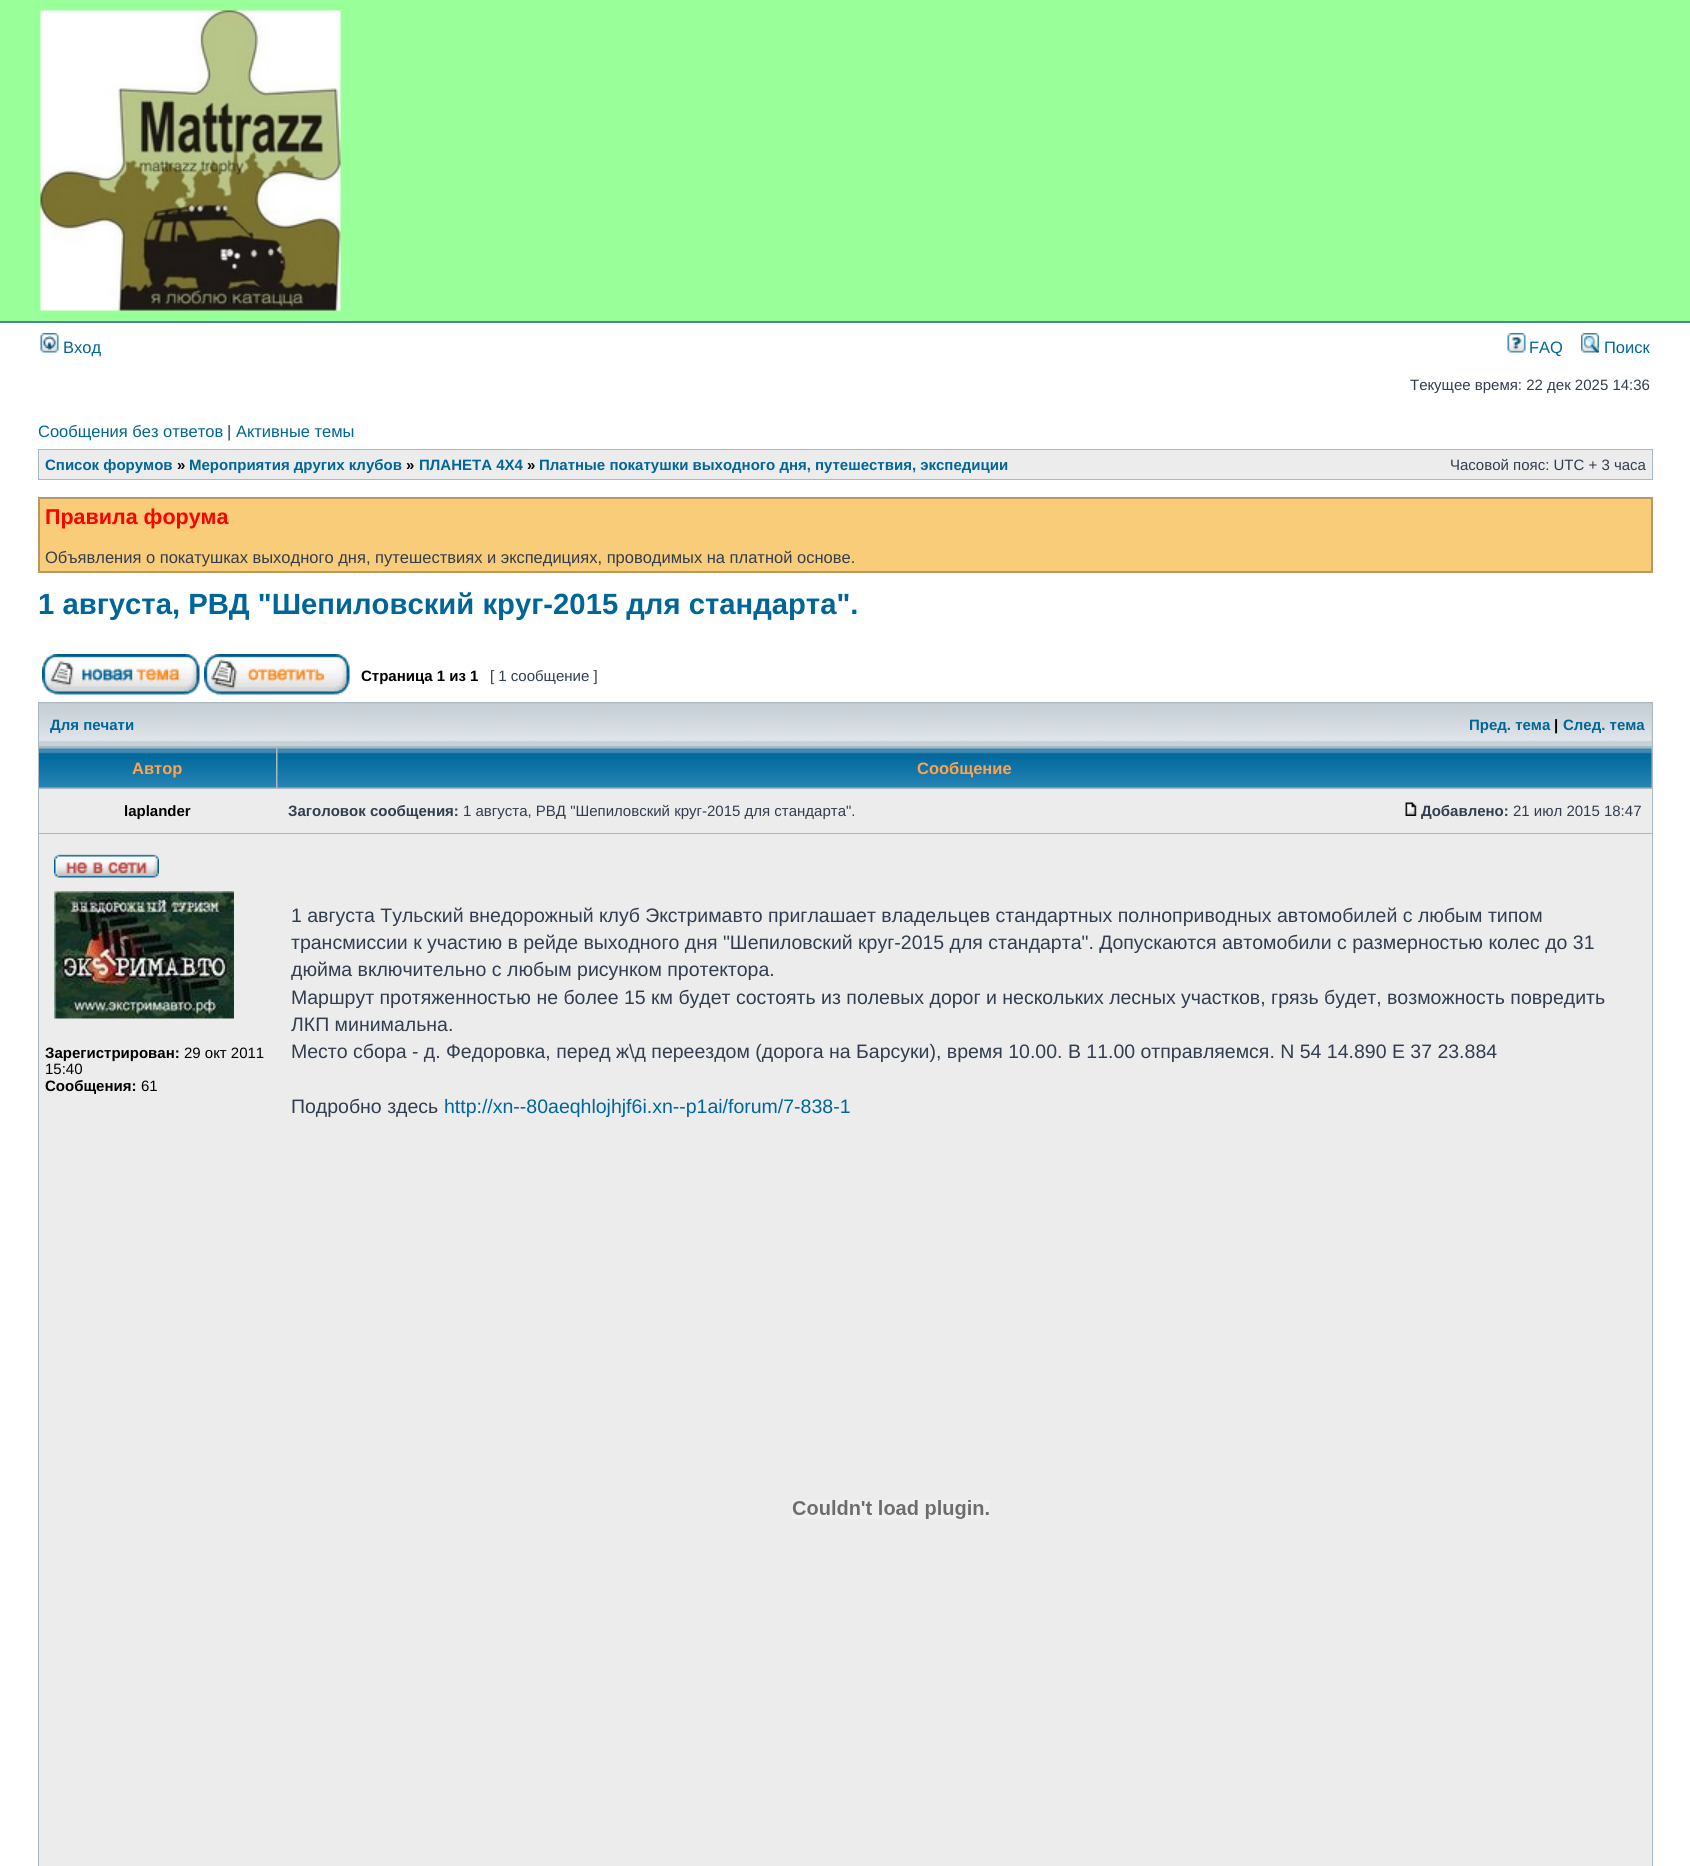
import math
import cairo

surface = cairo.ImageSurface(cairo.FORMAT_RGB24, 1690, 1866)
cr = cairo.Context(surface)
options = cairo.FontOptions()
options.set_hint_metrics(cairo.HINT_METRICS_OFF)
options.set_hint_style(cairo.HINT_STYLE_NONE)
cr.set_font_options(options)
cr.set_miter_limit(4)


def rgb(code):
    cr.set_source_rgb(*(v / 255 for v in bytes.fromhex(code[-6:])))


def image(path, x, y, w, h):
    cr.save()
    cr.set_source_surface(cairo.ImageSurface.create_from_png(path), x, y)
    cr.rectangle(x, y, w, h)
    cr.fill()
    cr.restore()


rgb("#ffffff")
cr.paint()
rgb("#99ff99")
cr.rectangle(0, 0, 1690, 321)
cr.fill()
rgb("#4787a7")
cr.rectangle(0, 321, 1690, 2)
cr.fill()
image("img/1.png", 40, 10, 301, 301)
image("img/2.png", 40, 333, 19, 20)
image("img/3.png", 1507, 333, 19, 20)
image("img/4.png", 1581, 333, 18, 20)
rgb("#a9b8c2")
cr.rectangle(38, 449, 1615, 31)
cr.fill()
rgb("#ececec")
cr.rectangle(39, 450, 1613, 29)
cr.fill()
rgb("#f9cc79")
cr.rectangle(39, 498, 1613, 74)
cr.fill_preserve()
rgb("#bb9860")
cr.stroke()
image("img/5.png", 42, 654, 158, 41)
image("img/6.png", 204, 654, 146, 41)
rgb("#a9b8c2")
cr.rectangle(38, 702, 1615, 1164)
cr.fill()
rgb("#c7d0d7")
cr.rectangle(39, 704, 1613, 42)
cr.fill()
image("img/7.png", 39, 703, 1613, 39)
rgb("#99cc99")
cr.rectangle(39, 787, 237, 1)
cr.fill()
image("img/8.png", 39, 748, 237, 40)
cr.rectangle(278, 749, 1374, 39)
cr.fill()
image("img/9.png", 277, 748, 1375, 40)
rgb("#ececec")
cr.rectangle(39, 789, 1613, 44)
cr.fill()
image("img/10.png", 1405, 802, 12, 14)
cr.rectangle(39, 834, 1613, 1032)
cr.fill()
image("img/11.png", 54, 854, 105, 24)
image("img/12.png", 54, 891, 180, 128)
image("img/13.png", 792, 1500, 197, 19)
cr.select_font_face("Liberation Sans")
cr.set_font_size(16.5)
rgb("#006597")
for x, y, s in [
    (63, 353, "Вход"),
    (1529, 353, "FAQ"),
    (1604, 353, "Поиск"),
]:
    cr.move_to(x, y)
    cr.show_text(s)
cr.set_font_size(15)
rgb("#323d4f")
cr.move_to(1410, 390)
cr.show_text("Текущее время: 22 дек 2025 14:36")
cr.set_font_size(16.5)
rgb("#006597")
cr.move_to(38, 437)
cr.show_text("Сообщения без ответов")
rgb("#323d4f")
cr.move_to(227, 437)
cr.show_text("|")
rgb("#006597")
cr.move_to(236, 437)
cr.show_text("Активные темы")
cr.select_font_face("Liberation Sans", cairo.FONT_SLANT_NORMAL, cairo.FONT_WEIGHT_BOLD)
cr.set_font_size(15)
cr.move_to(45, 470)
cr.show_text("Список форумов")
rgb("#000000")
cr.move_to(177, 470)
cr.show_text("»")
rgb("#006597")
cr.move_to(189, 470)
cr.show_text("Мероприятия других клубов")
rgb("#000000")
cr.move_to(406, 470)
cr.show_text("»")
rgb("#006597")
cr.move_to(419, 470)
cr.show_text("ПЛАНЕТА 4Х4")
rgb("#000000")
cr.move_to(527, 470)
cr.show_text("»")
rgb("#006597")
cr.move_to(539, 470)
cr.show_text("Платные покатушки выходного дня, путешествия, экспедиции")
cr.select_font_face("Liberation Sans")
rgb("#323d4f")
cr.move_to(1450, 470)
cr.show_text("Часовой пояс: UTC + 3 часа")
cr.select_font_face("Liberation Sans", cairo.FONT_SLANT_NORMAL, cairo.FONT_WEIGHT_BOLD)
cr.set_font_size(21.5)
rgb("#ff0000")
cr.move_to(45, 524)
cr.show_text("Правила форума")
cr.select_font_face("Liberation Sans")
cr.set_font_size(16.5)
rgb("#323d4f")
cr.move_to(45, 563)
cr.show_text("Объявления о покатушках выходного дня, путешествиях и экспедициях, проводимых на платной основе.")
cr.select_font_face("Liberation Sans", cairo.FONT_SLANT_NORMAL, cairo.FONT_WEIGHT_BOLD)
cr.set_font_size(29.25)
rgb("#006597")
cr.move_to(38, 614)
cr.show_text("1 августа, РВД \"Шепиловский круг-2015 для стандарта\".")
cr.set_font_size(15)
rgb("#000000")
cr.move_to(361, 681)
cr.show_text("Страница 1 из 1")
cr.select_font_face("Liberation Sans")
rgb("#323d4f")
cr.move_to(490, 681)
cr.show_text("[ 1 сообщение ]")
cr.select_font_face("Liberation Sans", cairo.FONT_SLANT_NORMAL, cairo.FONT_WEIGHT_BOLD)
rgb("#006597")
cr.move_to(50, 730)
cr.show_text("Для печати")
cr.move_to(1469, 730)
cr.show_text("Пред. тема")
rgb("#000000")
cr.move_to(1554, 730)
cr.show_text("|")
rgb("#006597")
cr.move_to(1563, 730)
cr.show_text("След. тема")
cr.set_font_size(16.5)
rgb("#ffa34f")
cr.move_to(132, 774)
cr.show_text("Автор")
cr.move_to(917, 774)
cr.show_text("Сообщение")
cr.set_font_size(15)
rgb("#000000")
cr.move_to(124, 816)
cr.show_text("laplander")
rgb("#323d4f")
cr.move_to(288, 816)
cr.show_text("Заголовок сообщения:")
cr.select_font_face("Liberation Sans")
cr.move_to(463, 816)
cr.show_text("1 августа, РВД \"Шепиловский круг-2015 для стандарта\".")
cr.select_font_face("Liberation Sans", cairo.FONT_SLANT_NORMAL, cairo.FONT_WEIGHT_BOLD)
cr.move_to(1421, 816)
cr.show_text("Добавлено:")
cr.select_font_face("Liberation Sans")
cr.move_to(1513, 816)
cr.show_text("21 июл 2015 18:47")
cr.select_font_face("Liberation Sans", cairo.FONT_SLANT_NORMAL, cairo.FONT_WEIGHT_BOLD)
rgb("#000000")
cr.move_to(45, 1058)
cr.show_text("Зарегистрирован:")
cr.select_font_face("Liberation Sans")
cr.move_to(184, 1058)
cr.show_text("29 окт 2011")
cr.move_to(45, 1074)
cr.show_text("15:40")
cr.select_font_face("Liberation Sans", cairo.FONT_SLANT_NORMAL, cairo.FONT_WEIGHT_BOLD)
cr.move_to(45, 1091)
cr.show_text("Сообщения:")
cr.select_font_face("Liberation Sans")
cr.move_to(141, 1091)
cr.show_text("61")
cr.set_font_size(19.5)
rgb("#323d4f")
for x, y, s in [
    (291, 922, "1 августа Тульский внедорожный клуб Экстримавто приглашает владельцев стандартных полноприводных автомобилей с любым типом"),
    (291, 949, "трансмиссии к участию в рейде выходного дня \"Шепиловский круг-2015 для стандарта\". Допускаются автомобили с размерностью колес до 31"),
    (291, 976, "дюйма включительно с любым рисунком протектора."),
    (291, 1004, "Маршрут протяженностью не более 15 км будет состоять из полевых дорог и нескольких лесных участков, грязь будет, возможность повредить"),
    (291, 1031, "ЛКП минимальна."),
    (291, 1058, "Место сбора - д. Федоровка, перед ж\\д переездом (дорога на Барсуки), время 10.00. В 11.00 отправляемся. N 54 14.890 E 37 23.884"),
    (291, 1113, "Подробно здесь"),
]:
    cr.move_to(x, y)
    cr.show_text(s)
rgb("#006597")
cr.move_to(444, 1113)
cr.show_text("http://xn--80aeqhlojhjf6i.xn--p1ai/forum/7-838-1")
surface.write_to_png("page.png")
